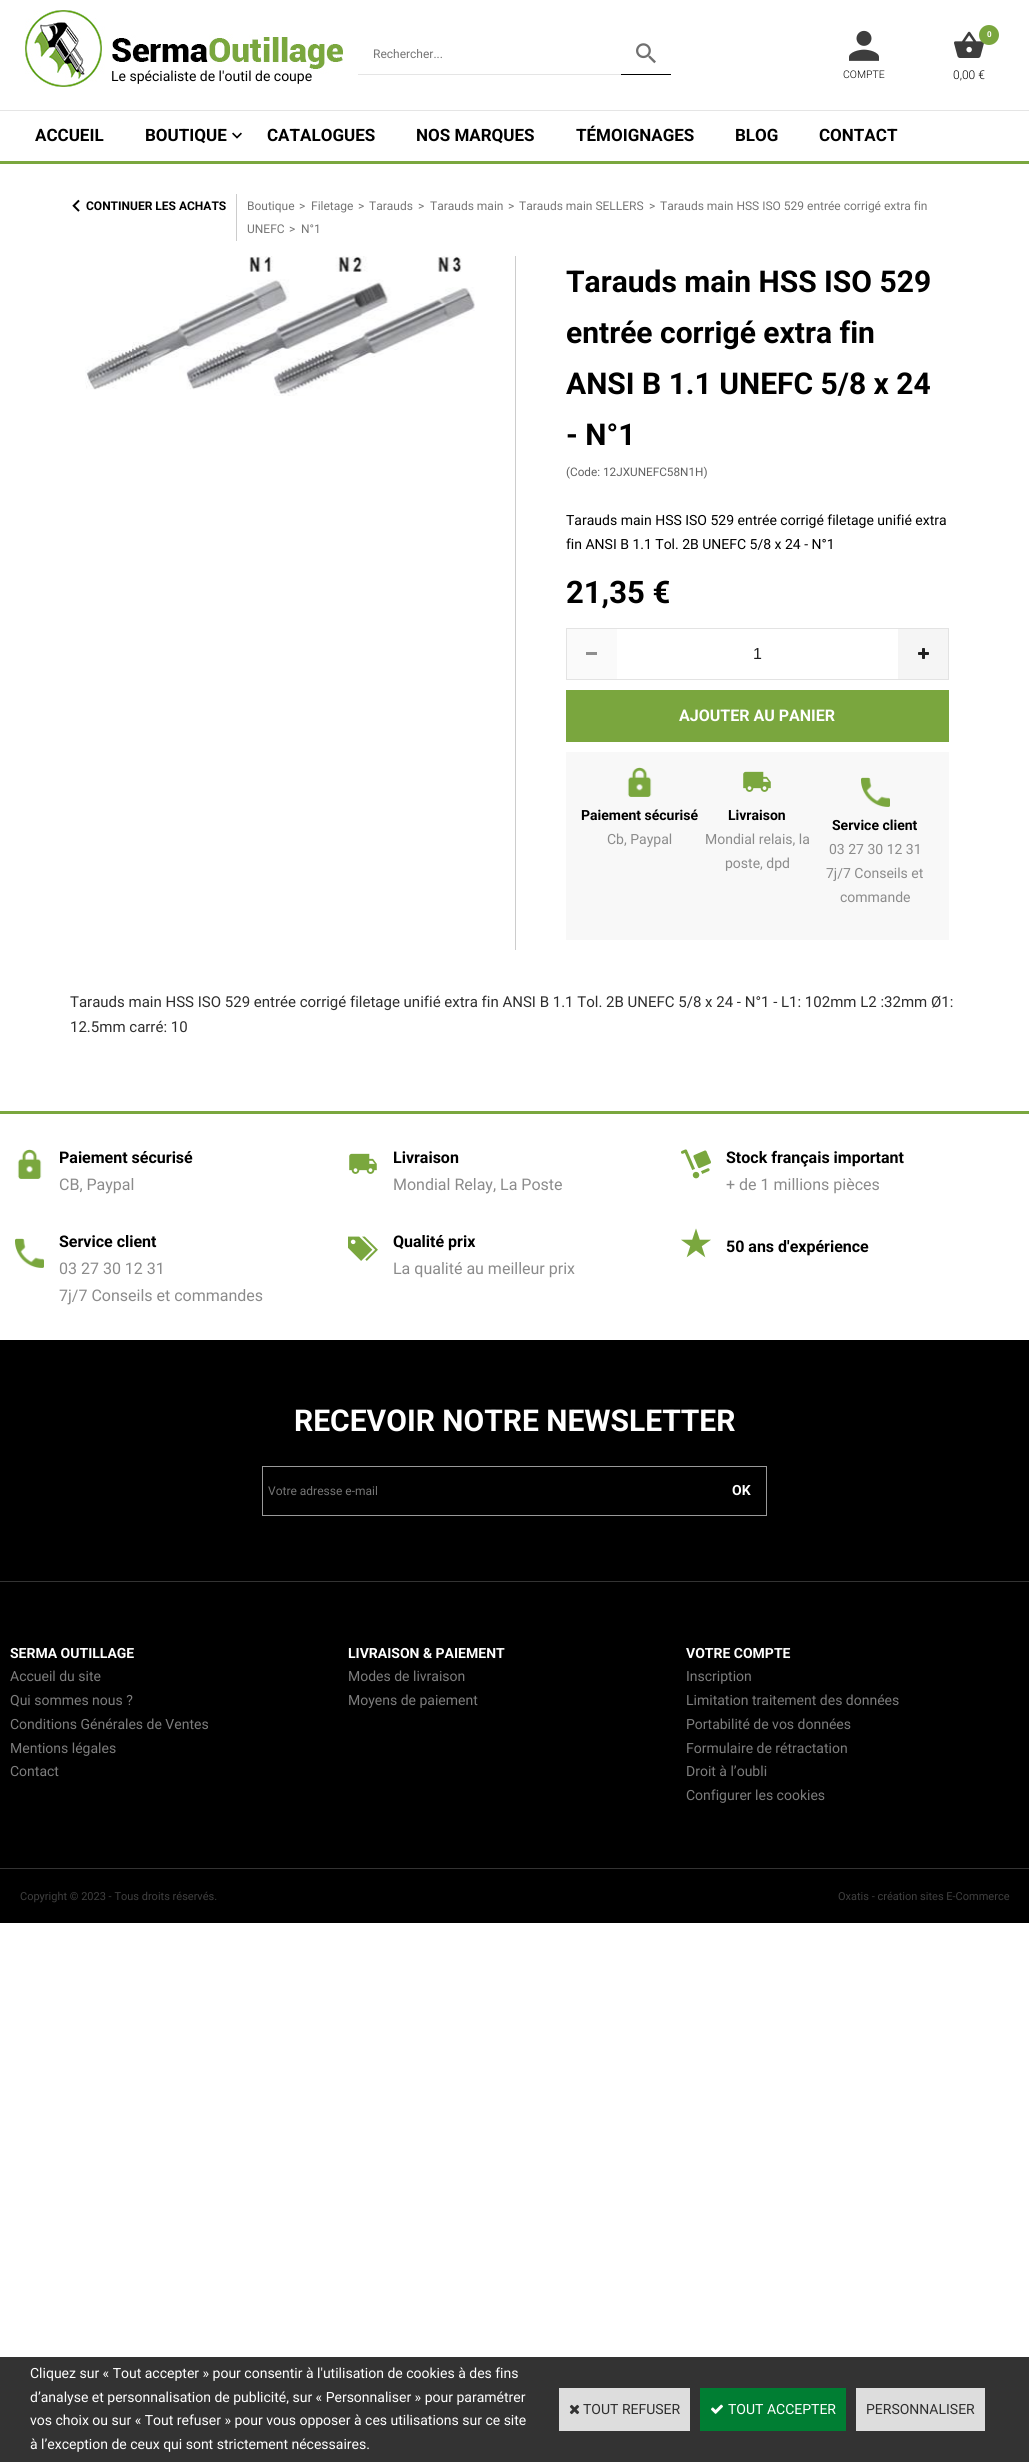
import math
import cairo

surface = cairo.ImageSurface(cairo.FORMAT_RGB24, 1029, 2462)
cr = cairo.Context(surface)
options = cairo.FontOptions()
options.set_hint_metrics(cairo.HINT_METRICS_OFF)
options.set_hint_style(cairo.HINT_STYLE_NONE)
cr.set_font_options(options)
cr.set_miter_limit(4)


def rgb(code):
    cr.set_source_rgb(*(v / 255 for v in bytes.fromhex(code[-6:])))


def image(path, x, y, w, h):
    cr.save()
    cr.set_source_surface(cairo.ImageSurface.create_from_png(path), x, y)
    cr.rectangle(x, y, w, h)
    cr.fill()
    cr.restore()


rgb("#ffffff")
cr.paint()
for x, y, w, h, color in [
    (0, 161, 1029, 3, "#7aa73e"),
    (358, 74, 263, 1, "#e5e5e5"),
    (621, 74, 50, 1, "#000000"),
]:
    rgb(color)
    cr.rectangle(x, y, w, h)
    cr.fill()
image("img/1.png", 636, 43, 20, 21)
image("img/2.png", 849, 30, 30, 31)
image("img/3.png", 954, 31, 30, 27)
rgb("#7aa63e")
cr.arc(989, 35, 10, 0, 2 * math.pi)
cr.fill()
image("img/4.png", 25, 10, 318, 77)
rgb("#e5e5e5")
cr.rectangle(0, 110, 1029, 1)
cr.fill()
image("img/5.png", 232, 132, 10, 7)
image("img/6.png", 72, 199, 8, 13)
rgb("#cccccc")
cr.rectangle(236, 194, 1, 47)
cr.fill()
image("img/7.png", 85, 256, 390, 140)
cr.rectangle(515, 256, 1, 694)
cr.fill()
cr.rectangle(566.5, 628.5, 382, 51)
rgb("#e3e3e3")
cr.set_line_width(1)
cr.stroke()
for x, y, w, h, color in [
    (567, 629, 50, 50, "#fafafa"),
    (586, 652, 11, 3, "#8e8e8e"),
    (898, 629, 50, 50, "#f5f5f5"),
]:
    rgb(color)
    cr.rectangle(x, y, w, h)
    cr.fill()
image("img/8.png", 918, 648, 11, 11)
rgb("#7aa63e")
cr.rectangle(566, 690, 383, 52)
cr.fill()
rgb("#f8f8f8")
cr.rectangle(566, 752, 383, 188)
cr.fill()
image("img/9.png", 627, 767, 25, 30)
image("img/10.png", 743, 771, 28, 21)
image("img/11.png", 861, 777, 29, 30)
rgb("#000000")
cr.rectangle(0, 1340, 1029, 583)
cr.fill()
rgb("#7aa73e")
cr.rectangle(0, 1111, 1029, 3)
cr.fill()
image("img/12.png", 17, 1149, 25, 30)
image("img/13.png", 349, 1153, 28, 21)
image("img/14.png", 681, 1149, 30, 30)
image("img/15.png", 15, 1238, 29, 30)
image("img/16.png", 348, 1236, 30, 25)
image("img/17.png", 681, 1228, 30, 30)
for x, y, w, h, color in [
    (0, 1581, 1029, 1, "#333333"),
    (262, 1466, 505, 1, "#999999"),
    (262, 1515, 456, 1, "#999999"),
    (262, 1466, 1, 50, "#999999"),
    (766, 1466, 1, 50, "#999999"),
    (717, 1515, 50, 1, "#999999"),
    (0, 1868, 1029, 1, "#333333"),
    (0, 2357, 1029, 105, "#333333"),
    (559, 2388, 131, 43, "#dddddd"),
]:
    rgb(color)
    cr.rectangle(x, y, w, h)
    cr.fill()
image("img/18.png", 569, 2404, 11, 11)
rgb("#007e33")
cr.rectangle(700, 2388, 146, 43)
cr.fill()
image("img/19.png", 711, 2404, 12, 10)
rgb("#dddddd")
cr.rectangle(856, 2388, 129, 43)
cr.fill()
cr.select_font_face("Roboto")
cr.set_font_size(12)
rgb("#757575")
cr.move_to(373, 58)
cr.show_text("Rechercher...")
cr.select_font_face("Roboto Light")
cr.set_font_size(10.5)
rgb("#000000")
cr.move_to(843, 78)
cr.show_text("COMPTE")
cr.select_font_face("Roboto", cairo.FONT_SLANT_NORMAL, cairo.FONT_WEIGHT_BOLD)
cr.set_font_size(8)
rgb("#ffffff")
cr.move_to(987, 37)
cr.show_text("0")
cr.select_font_face("Roboto Light")
cr.set_font_size(12)
rgb("#000000")
cr.move_to(953, 79)
cr.show_text("0,00 €")
cr.select_font_face("Roboto")
cr.set_font_size(14)
cr.move_to(111, 81)
cr.show_text("Le spécialiste de l'outil de coupe")
cr.select_font_face("Roboto", cairo.FONT_SLANT_NORMAL, cairo.FONT_WEIGHT_BOLD)
cr.set_font_size(17)
for x, y, s in [
    (35, 141, "ACCUEIL"),
    (145, 141, "BOUTIQUE"),
    (267, 141, "CATALOGUES"),
    (416, 141, "NOS MARQUES"),
    (576, 141, "TÉMOIGNAGES"),
    (735, 141, "BLOG"),
    (819, 141, "CONTACT"),
]:
    cr.move_to(x, y)
    cr.show_text(s)
cr.set_font_size(12)
cr.move_to(86, 210)
cr.show_text("CONTINUER LES ACHATS")
cr.select_font_face("Roboto")
rgb("#757575")
for x, y, s in [
    (247, 210, "Boutique"),
    (299, 210, ">"),
    (311, 210, "Filetage"),
    (358, 210, ">"),
    (369, 210, "Tarauds"),
    (418, 210, ">"),
    (430, 210, "Tarauds main"),
    (508, 210, ">"),
    (519, 210, "Tarauds main SELLERS"),
    (649, 210, ">"),
    (660, 210, "Tarauds main HSS ISO 529 entrée corrigé extra fin"),
    (247, 233, "UNEFC"),
    (289, 233, ">"),
    (301, 233, "N°1"),
]:
    cr.move_to(x, y)
    cr.show_text(s)
cr.select_font_face("Roboto", cairo.FONT_SLANT_NORMAL, cairo.FONT_WEIGHT_BOLD)
cr.set_font_size(30)
rgb("#000000")
for x, y, s in [
    (566, 292, "Tarauds main HSS ISO 529"),
    (566, 343, "entrée corrigé extra fin"),
    (566, 394, "ANSI B 1.1 UNEFC 5/8 x 24"),
    (566, 445, "- N°1"),
]:
    cr.move_to(x, y)
    cr.show_text(s)
cr.select_font_face("Roboto")
cr.set_font_size(11.75)
rgb("#616161")
cr.move_to(566, 476)
cr.show_text("(Code: 12JXUNEFC58N1H)")
cr.set_font_size(14)
rgb("#000000")
cr.move_to(566, 525)
cr.show_text("Tarauds main HSS ISO 529 entrée corrigé filetage unifié extra")
cr.move_to(566, 549)
cr.show_text("fin ANSI B 1.1 Tol. 2B UNEFC 5/8 x 24 - N°1")
cr.select_font_face("Roboto", cairo.FONT_SLANT_NORMAL, cairo.FONT_WEIGHT_BOLD)
cr.set_font_size(31)
cr.move_to(566, 603)
cr.show_text("21,35 €")
cr.select_font_face("Liberation Sans")
cr.set_font_size(16)
rgb("#212121")
cr.move_to(753, 659)
cr.show_text("1")
cr.select_font_face("Roboto", cairo.FONT_SLANT_NORMAL, cairo.FONT_WEIGHT_BOLD)
rgb("#ffffff")
cr.move_to(679, 721)
cr.show_text("AJOUTER AU PANIER")
cr.set_font_size(14)
rgb("#000000")
cr.move_to(581, 820)
cr.show_text("Paiement sécurisé")
cr.select_font_face("Roboto")
rgb("#8b8b8b")
cr.move_to(607, 844)
cr.show_text("Cb, Paypal")
cr.select_font_face("Roboto", cairo.FONT_SLANT_NORMAL, cairo.FONT_WEIGHT_BOLD)
rgb("#000000")
cr.move_to(728, 820)
cr.show_text("Livraison")
cr.select_font_face("Roboto")
rgb("#8b8b8b")
cr.move_to(705, 844)
cr.show_text("Mondial relais, la")
cr.move_to(725, 868)
cr.show_text("poste, dpd")
cr.select_font_face("Roboto", cairo.FONT_SLANT_NORMAL, cairo.FONT_WEIGHT_BOLD)
rgb("#000000")
cr.move_to(832, 830)
cr.show_text("Service client")
cr.select_font_face("Roboto")
rgb("#8b8b8b")
for x, y, s in [
    (829, 854, "03 27 30 12 31"),
    (826, 878, "7j/7 Conseils et"),
    (840, 902, "commande"),
]:
    cr.move_to(x, y)
    cr.show_text(s)
cr.set_font_size(15)
rgb("#2e2e2e")
cr.move_to(70, 1007)
cr.show_text("Tarauds main HSS ISO 529 entrée corrigé filetage unifié extra fin ANSI B 1.1 Tol. 2B UNEFC 5/8 x 24 - N°1 - L1: 102mm L2 :32mm Ø1:")
cr.move_to(70, 1032)
cr.show_text("12.5mm carré: 10")
cr.select_font_face("Roboto", cairo.FONT_SLANT_NORMAL, cairo.FONT_WEIGHT_BOLD)
cr.set_font_size(16)
rgb("#000000")
cr.move_to(59, 1163)
cr.show_text("Paiement sécurisé")
cr.select_font_face("Roboto")
rgb("#8b8b8b")
cr.move_to(59, 1190)
cr.show_text("CB, Paypal")
cr.select_font_face("Roboto", cairo.FONT_SLANT_NORMAL, cairo.FONT_WEIGHT_BOLD)
rgb("#000000")
cr.move_to(393, 1163)
cr.show_text("Livraison")
cr.select_font_face("Roboto")
rgb("#8b8b8b")
cr.move_to(393, 1190)
cr.show_text("Mondial Relay, La Poste")
cr.select_font_face("Roboto", cairo.FONT_SLANT_NORMAL, cairo.FONT_WEIGHT_BOLD)
rgb("#000000")
cr.move_to(726, 1163)
cr.show_text("Stock français important")
cr.select_font_face("Roboto")
rgb("#8b8b8b")
cr.move_to(726, 1190)
cr.show_text("+ de 1 millions pièces")
cr.select_font_face("Roboto", cairo.FONT_SLANT_NORMAL, cairo.FONT_WEIGHT_BOLD)
rgb("#000000")
cr.move_to(59, 1247)
cr.show_text("Service client")
cr.select_font_face("Roboto")
rgb("#8b8b8b")
cr.move_to(59, 1274)
cr.show_text("03 27 30 12 31")
cr.move_to(59, 1301)
cr.show_text("7j/7 Conseils et commandes")
cr.select_font_face("Roboto", cairo.FONT_SLANT_NORMAL, cairo.FONT_WEIGHT_BOLD)
rgb("#000000")
cr.move_to(393, 1247)
cr.show_text("Qualité prix")
cr.select_font_face("Roboto")
rgb("#8b8b8b")
cr.move_to(393, 1274)
cr.show_text("La qualité au meilleur prix")
cr.select_font_face("Roboto", cairo.FONT_SLANT_NORMAL, cairo.FONT_WEIGHT_BOLD)
rgb("#000000")
cr.move_to(726, 1252)
cr.show_text("50 ans d'expérience")
cr.set_font_size(30)
rgb("#ffffff")
cr.move_to(294, 1431)
cr.show_text("RECEVOIR NOTRE NEWSLETTER")
cr.select_font_face("Roboto")
cr.set_font_size(12)
rgb("#757575")
cr.move_to(268, 1495)
cr.show_text("Votre adresse e-mail")
cr.select_font_face("Roboto", cairo.FONT_SLANT_NORMAL, cairo.FONT_WEIGHT_BOLD)
cr.set_font_size(14)
rgb("#ffffff")
cr.move_to(732, 1495)
cr.show_text("OK")
cr.move_to(10, 1658)
cr.show_text("SERMA OUTILLAGE")
cr.select_font_face("Roboto")
rgb("#7d7d7d")
for x, y, s in [
    (10, 1681, "Accueil du site"),
    (10, 1705, "Qui sommes nous ?"),
    (10, 1729, "Conditions Générales de Ventes"),
    (10, 1753, "Mentions légales"),
    (10, 1776, "Contact"),
]:
    cr.move_to(x, y)
    cr.show_text(s)
cr.select_font_face("Roboto", cairo.FONT_SLANT_NORMAL, cairo.FONT_WEIGHT_BOLD)
rgb("#ffffff")
cr.move_to(348, 1658)
cr.show_text("LIVRAISON & PAIEMENT")
cr.select_font_face("Roboto")
rgb("#7d7d7d")
cr.move_to(348, 1681)
cr.show_text("Modes de livraison")
cr.move_to(348, 1705)
cr.show_text("Moyens de paiement")
cr.select_font_face("Roboto", cairo.FONT_SLANT_NORMAL, cairo.FONT_WEIGHT_BOLD)
rgb("#ffffff")
cr.move_to(686, 1658)
cr.show_text("VOTRE COMPTE")
cr.select_font_face("Roboto")
rgb("#7d7d7d")
for x, y, s in [
    (686, 1681, "Inscription"),
    (686, 1705, "Limitation traitement des données"),
    (686, 1729, "Portabilité de vos données"),
    (686, 1753, "Formulaire de rétractation"),
    (686, 1776, "Droit à l’oubli"),
    (686, 1800, "Configurer les cookies"),
]:
    cr.move_to(x, y)
    cr.show_text(s)
cr.set_font_size(11)
rgb("#3f3f3f")
cr.move_to(20, 1900)
cr.show_text("Copyright © 2023 - Tous droits réservés.")
cr.move_to(838, 1900)
cr.show_text("Oxatis - création sites E-Commerce")
cr.set_font_size(14)
rgb("#ffffff")
for x, y, s in [
    (30, 2378, "Cliquez sur « Tout accepter » pour consentir à l'utilisation de cookies à des fins"),
    (30, 2402, "d’analyse et personnalisation de publicité, sur « Personnaliser » pour paramétrer"),
    (30, 2425, "vos choix ou sur « Tout refuser » pour vous opposer à ces utilisations sur ce site"),
    (30, 2449, "à l’exception de ceux qui sont strictement nécessaires."),
]:
    cr.move_to(x, y)
    cr.show_text(s)
rgb("#2e2e2e")
cr.move_to(583, 2414)
cr.show_text("TOUT REFUSER")
rgb("#ffffff")
cr.move_to(728, 2414)
cr.show_text("TOUT ACCEPTER")
rgb("#2e2e2e")
cr.move_to(866, 2414)
cr.show_text("PERSONNALISER")
surface.write_to_png("page.png")
